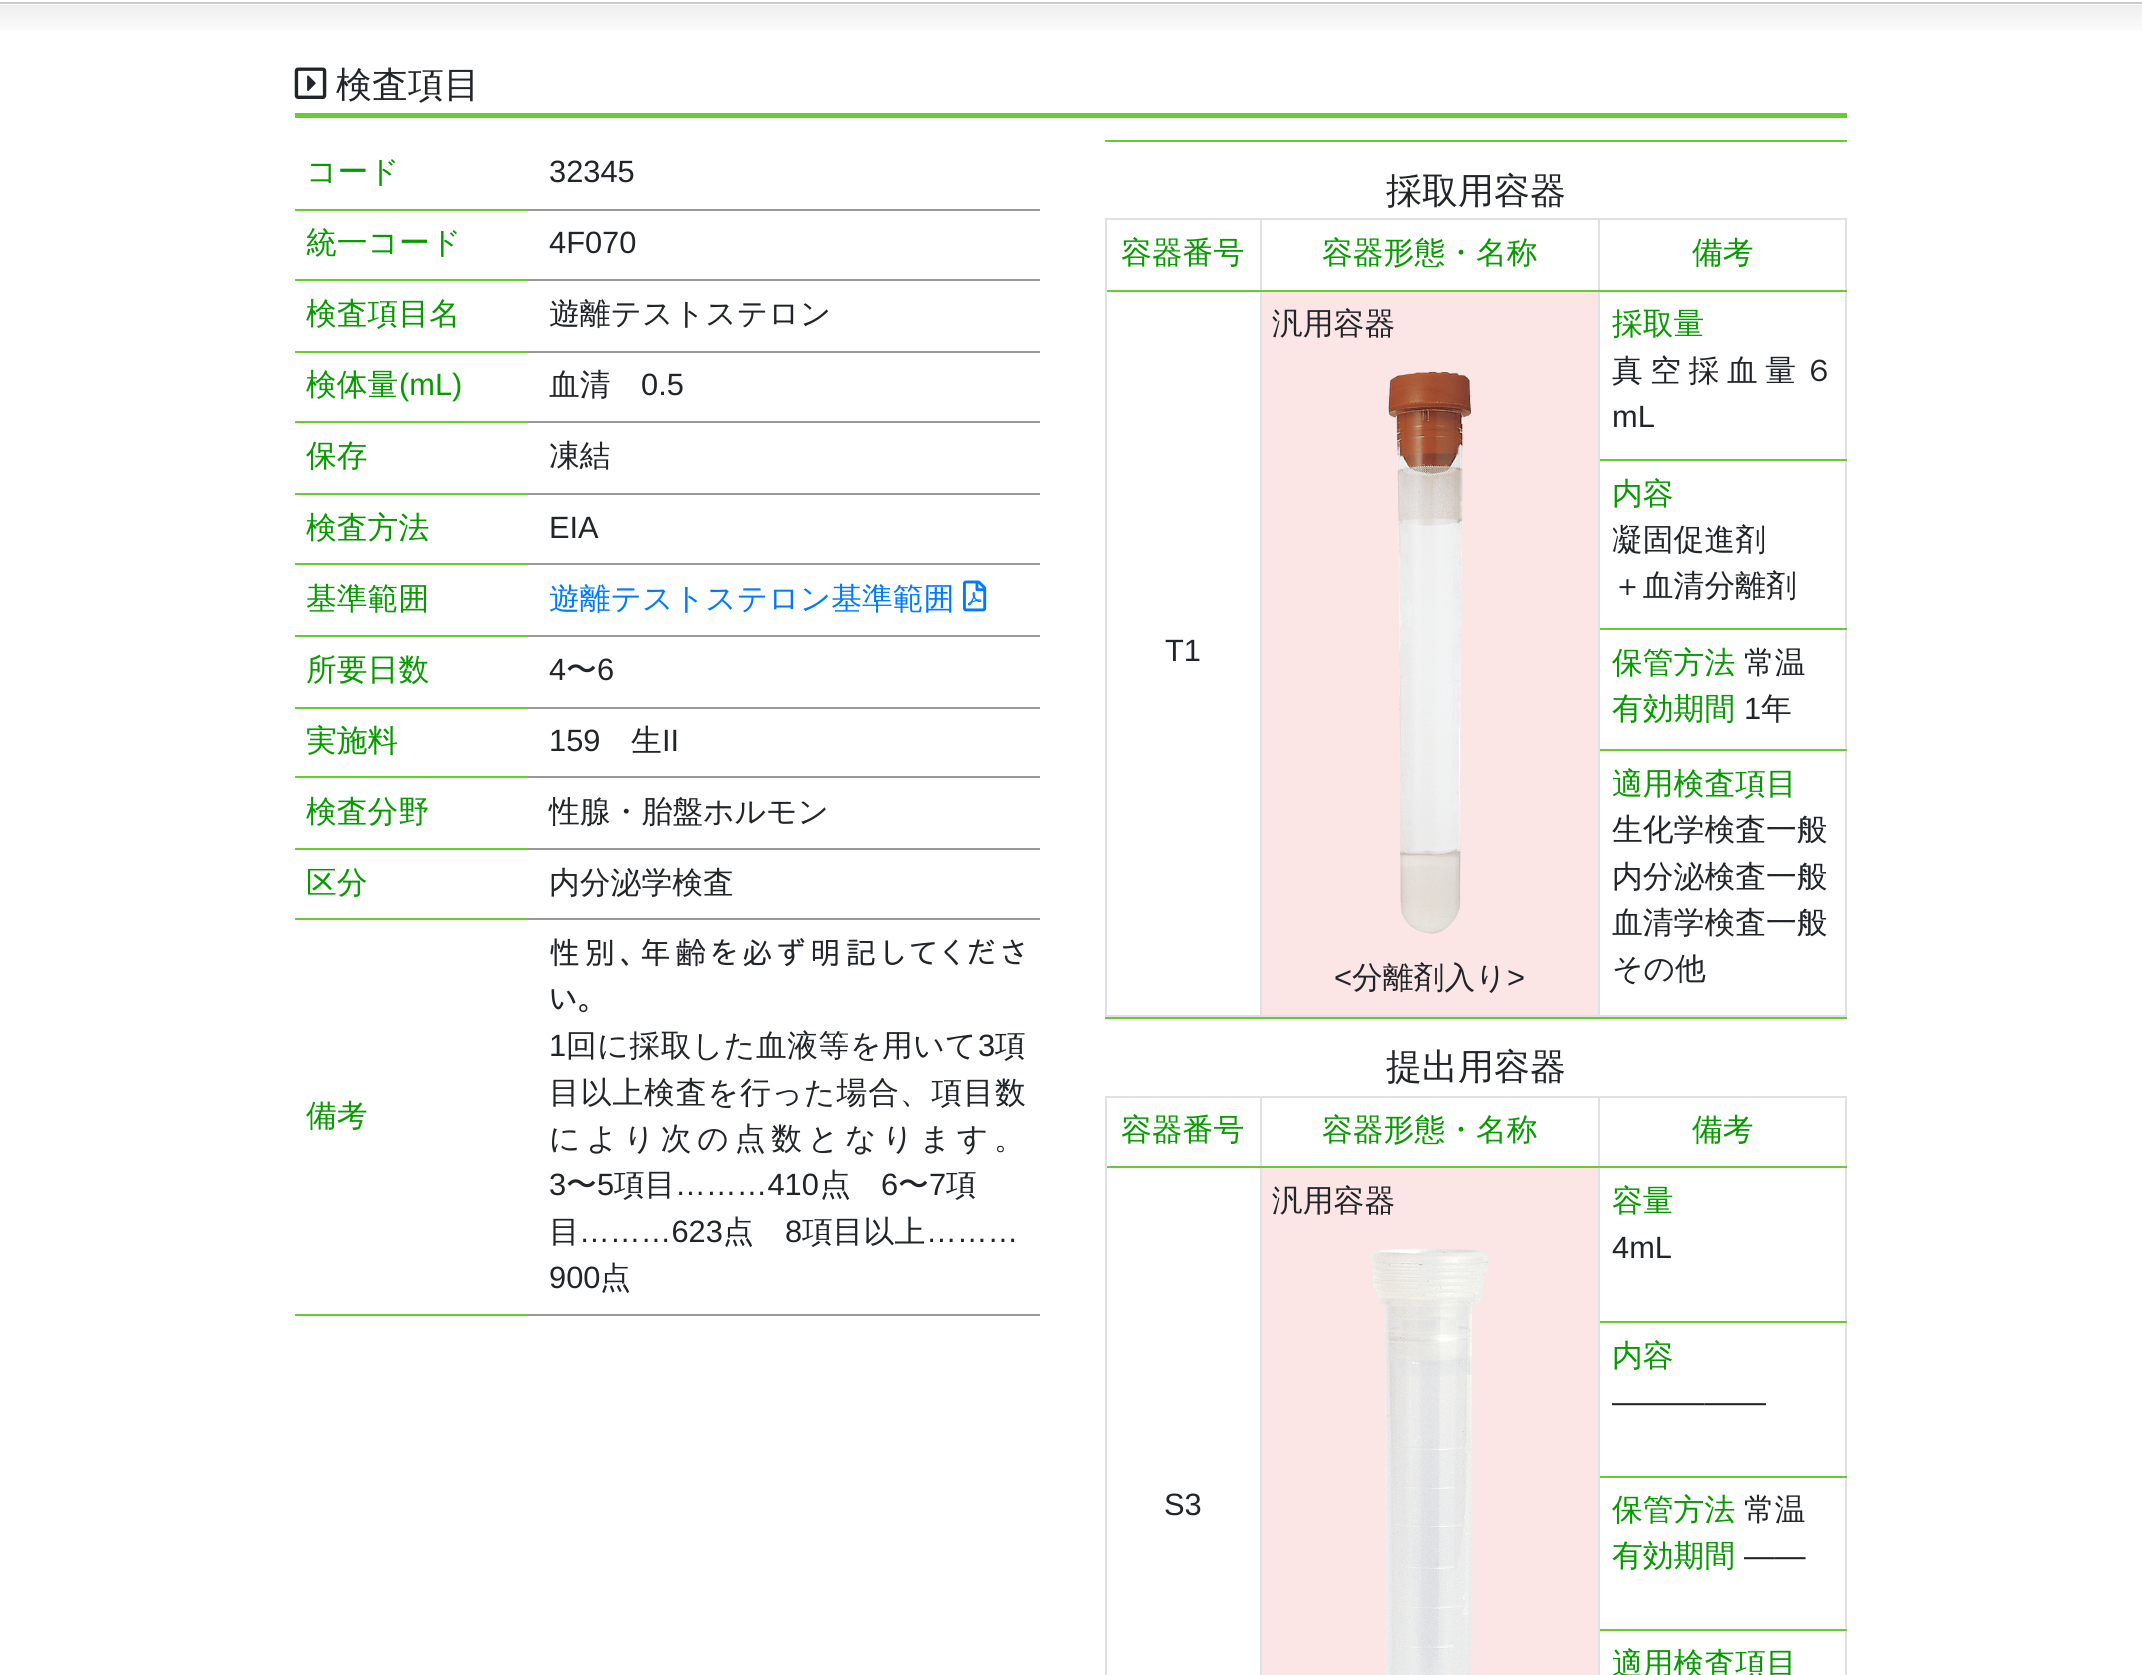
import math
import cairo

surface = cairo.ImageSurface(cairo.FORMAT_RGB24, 2142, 1675)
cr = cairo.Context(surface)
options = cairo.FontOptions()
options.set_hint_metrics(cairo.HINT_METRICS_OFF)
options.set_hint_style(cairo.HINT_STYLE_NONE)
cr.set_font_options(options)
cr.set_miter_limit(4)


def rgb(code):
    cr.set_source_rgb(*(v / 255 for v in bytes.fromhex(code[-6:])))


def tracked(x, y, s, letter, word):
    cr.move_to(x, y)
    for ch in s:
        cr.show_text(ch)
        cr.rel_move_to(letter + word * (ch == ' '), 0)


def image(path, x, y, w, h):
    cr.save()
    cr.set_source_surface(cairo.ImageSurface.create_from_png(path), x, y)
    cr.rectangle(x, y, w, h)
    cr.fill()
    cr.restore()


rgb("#ffffff")
cr.paint()
gradient = cairo.LinearGradient(1071, 4.5, 1071, 36)
gradient.add_color_stop_rgba(0, 0.933, 0.933, 0.933, 1)
gradient.add_color_stop_rgba(1, 1, 1, 1, 1)
cr.set_source(gradient)
cr.rectangle(0, 5, 2142, 26)
cr.fill()
rgb("#cccccc")
cr.rectangle(0, 2, 2142, 2)
cr.fill()
rgb("#66cc33")
cr.rectangle(295, 113, 1552, 5)
cr.fill()
image("img/1.png", 294, 67, 33, 32)
for x, y, w, h, color in [
    (524, 209, 516, 2, "#999999"),
    (295, 209, 232, 2, "#67cc32"),
    (524, 279, 516, 2, "#999999"),
    (295, 279, 232, 2, "#67cc32"),
    (524, 351, 516, 2, "#999999"),
    (295, 351, 232, 2, "#67cc32"),
    (524, 421, 516, 2, "#999999"),
    (295, 421, 232, 2, "#67cc32"),
    (524, 493, 516, 2, "#999999"),
    (295, 493, 232, 2, "#67cc32"),
    (524, 563, 516, 2, "#999999"),
    (295, 563, 232, 2, "#67cc32"),
    (524, 635, 516, 2, "#999999"),
    (295, 635, 232, 2, "#67cc32"),
]:
    rgb(color)
    cr.rectangle(x, y, w, h)
    cr.fill()
image("img/2.png", 963, 580, 24, 32)
for x, y, w, h, color in [
    (524, 707, 516, 2, "#999999"),
    (295, 707, 232, 2, "#67cc32"),
    (524, 776, 516, 2, "#999999"),
    (295, 776, 232, 2, "#67cc32"),
    (524, 848, 516, 2, "#999999"),
    (295, 848, 232, 2, "#67cc32"),
    (524, 918, 516, 2, "#999999"),
    (295, 918, 232, 2, "#67cc32"),
    (524, 1314, 516, 2, "#999999"),
    (295, 1314, 232, 2, "#67cc32"),
    (1105, 140, 742, 2, "#67cc32"),
    (1105, 218, 742, 2, "#dee2e6"),
    (1845, 218, 2, 799, "#dee2e6"),
    (1105, 1015, 742, 2, "#dee2e6"),
    (1105, 293, 2, 724, "#dee2e6"),
    (1598, 749, 2, 268, "#dee2e6"),
    (1598, 749, 249, 2, "#67cc32"),
    (1598, 628, 2, 124, "#dee2e6"),
    (1598, 628, 249, 2, "#67cc32"),
    (1598, 459, 2, 171, "#dee2e6"),
    (1598, 459, 249, 2, "#67cc32"),
    (1598, 290, 2, 171, "#dee2e6"),
    (1598, 290, 249, 2, "#67cc32"),
    (1598, 218, 2, 75, "#dee2e6"),
    (1260, 290, 2, 727, "#dee2e6"),
    (1260, 290, 340, 2, "#67cc32"),
    (1260, 218, 2, 75, "#dee2e6"),
    (1105, 290, 157, 2, "#67cc32"),
    (1105, 218, 2, 75, "#dee2e6"),
    (1262, 292, 336, 723, "#fbe5e5"),
]:
    rgb(color)
    cr.rectangle(x, y, w, h)
    cr.fill()
image("img/3.png", 1388, 371, 84, 563)
for x, y, w, h, color in [
    (1105, 1017, 742, 2, "#67cc32"),
    (1105, 1096, 742, 2, "#dee2e6"),
    (1845, 1096, 2, 579, "#dee2e6"),
    (1105, 1168, 2, 507, "#dee2e6"),
    (1598, 1629, 2, 46, "#dee2e6"),
    (1598, 1629, 249, 2, "#67cc32"),
    (1598, 1476, 2, 155, "#dee2e6"),
    (1598, 1476, 249, 2, "#67cc32"),
    (1598, 1321, 2, 157, "#dee2e6"),
    (1598, 1321, 249, 2, "#67cc32"),
    (1598, 1166, 2, 157, "#dee2e6"),
    (1598, 1166, 249, 2, "#67cc32"),
    (1598, 1096, 2, 72, "#dee2e6"),
    (1260, 1166, 2, 509, "#dee2e6"),
    (1260, 1166, 340, 2, "#67cc32"),
    (1260, 1096, 2, 72, "#dee2e6"),
    (1105, 1166, 157, 2, "#67cc32"),
    (1105, 1096, 2, 72, "#dee2e6"),
    (1262, 1168, 336, 507, "#fbe5e5"),
]:
    rgb(color)
    cr.rectangle(x, y, w, h)
    cr.fill()
image("img/4.png", 1370, 1248, 120, 427)
cr.select_font_face("WenQuanYi Zen Hei Medium")
cr.set_font_size(36)
rgb("#212529")
cr.move_to(336, 97)
cr.show_text("検査項目")
cr.set_font_size(30.8)
rgb("#069900")
cr.move_to(306, 182)
cr.show_text("コード")
cr.select_font_face("Liberation Sans")
rgb("#212529")
cr.move_to(549, 182)
cr.show_text("32345")
cr.select_font_face("WenQuanYi Zen Hei Medium")
rgb("#069900")
cr.move_to(306, 253)
cr.show_text("統一コード")
cr.select_font_face("Liberation Sans")
rgb("#212529")
cr.move_to(549, 253)
cr.show_text("4F070")
cr.select_font_face("WenQuanYi Zen Hei Medium")
rgb("#069900")
cr.move_to(306, 324)
cr.show_text("検査項目名")
rgb("#212529")
cr.move_to(549, 324)
cr.show_text("遊離テストステロン")
rgb("#069900")
cr.move_to(306, 395)
cr.show_text("検体量")
cr.select_font_face("Liberation Sans")
cr.move_to(399, 395)
cr.show_text("(mL)")
cr.select_font_face("WenQuanYi Zen Hei Medium")
rgb("#212529")
cr.move_to(549, 395)
cr.show_text("血清")
cr.select_font_face("Liberation Sans")
cr.move_to(641, 395)
cr.show_text("0.5")
cr.select_font_face("WenQuanYi Zen Hei Medium")
rgb("#069900")
cr.move_to(306, 466)
cr.show_text("保存")
rgb("#212529")
cr.move_to(549, 466)
cr.show_text("凍結")
rgb("#069900")
cr.move_to(306, 538)
cr.show_text("検査方法")
cr.select_font_face("Liberation Sans")
rgb("#212529")
cr.move_to(549, 538)
cr.show_text("EIA")
cr.select_font_face("WenQuanYi Zen Hei Medium")
rgb("#069900")
cr.move_to(306, 609)
cr.show_text("基準範囲")
rgb("#007bff")
cr.move_to(549, 609)
cr.show_text("遊離テストステロン基準範囲")
rgb("#069900")
cr.move_to(306, 680)
cr.show_text("所要日数")
cr.select_font_face("Liberation Sans")
rgb("#212529")
cr.move_to(549, 680)
cr.show_text("4")
cr.select_font_face("WenQuanYi Zen Hei Medium")
cr.move_to(566, 680)
cr.show_text("〜")
cr.select_font_face("Liberation Sans")
cr.move_to(597, 680)
cr.show_text("6")
cr.select_font_face("WenQuanYi Zen Hei Medium")
rgb("#069900")
cr.move_to(306, 751)
cr.show_text("実施料")
cr.select_font_face("Liberation Sans")
rgb("#212529")
cr.move_to(549, 751)
cr.show_text("159")
cr.select_font_face("WenQuanYi Zen Hei Medium")
cr.move_to(631, 751)
cr.show_text("生")
cr.select_font_face("Liberation Sans")
cr.move_to(662, 751)
cr.show_text("II")
cr.select_font_face("WenQuanYi Zen Hei Medium")
rgb("#069900")
cr.move_to(306, 822)
cr.show_text("検査分野")
rgb("#212529")
cr.move_to(549, 822)
cr.show_text("性腺・胎盤ホルモン")
rgb("#069900")
cr.move_to(306, 893)
cr.show_text("区分")
rgb("#212529")
cr.move_to(549, 893)
cr.show_text("内分泌学検査")
rgb("#069900")
cr.move_to(306, 1126)
cr.show_text("備考")
cr.select_font_face("IPAPGothic")
rgb("#212529")
tracked(549, 964, "性別､年齢を必ず明記してくださ", 4.6, 0)
cr.move_to(549, 1010)
cr.show_text("い。")
cr.select_font_face("Liberation Sans")
tracked(549, 1056, "1", 0.5, 0)
cr.select_font_face("WenQuanYi Zen Hei Medium")
tracked(566, 1056, "回に採取した血液等を用いて", 0.5, 0)
cr.select_font_face("Liberation Sans")
tracked(978, 1056, "3", 0.5, 0)
cr.select_font_face("WenQuanYi Zen Hei Medium")
tracked(995, 1056, "項", 0.5, 0)
tracked(549, 1103, "目以上検査を行った場合、項目数", 0.9, 0)
tracked(549, 1149, "により次の点数となります。", 5.75, 0)
cr.select_font_face("Liberation Sans")
cr.move_to(549, 1195)
cr.show_text("3")
cr.select_font_face("WenQuanYi Zen Hei Medium")
cr.move_to(566, 1195)
cr.show_text("〜")
cr.select_font_face("Liberation Sans")
cr.move_to(597, 1195)
cr.show_text("5")
cr.select_font_face("WenQuanYi Zen Hei Medium")
cr.move_to(614, 1195)
cr.show_text("項目")
cr.select_font_face("Liberation Sans")
cr.move_to(675, 1195)
cr.show_text("………410")
cr.select_font_face("WenQuanYi Zen Hei Medium")
cr.move_to(820, 1195)
cr.show_text("点")
cr.select_font_face("Liberation Sans")
cr.move_to(881, 1195)
cr.show_text("6")
cr.select_font_face("WenQuanYi Zen Hei Medium")
cr.move_to(898, 1195)
cr.show_text("〜")
cr.select_font_face("Liberation Sans")
cr.move_to(929, 1195)
cr.show_text("7")
cr.select_font_face("WenQuanYi Zen Hei Medium")
cr.move_to(946, 1195)
cr.show_text("項")
cr.move_to(549, 1242)
cr.show_text("目")
cr.select_font_face("Liberation Sans")
cr.move_to(579, 1242)
cr.show_text("………623")
cr.select_font_face("WenQuanYi Zen Hei Medium")
cr.move_to(723, 1242)
cr.show_text("点")
cr.select_font_face("Liberation Sans")
cr.move_to(785, 1242)
cr.show_text("8")
cr.select_font_face("WenQuanYi Zen Hei Medium")
cr.move_to(802, 1242)
cr.show_text("項目以上")
cr.select_font_face("Liberation Sans")
cr.move_to(926, 1242)
cr.show_text("………")
cr.move_to(549, 1288)
cr.show_text("900")
cr.select_font_face("WenQuanYi Zen Hei Medium")
cr.move_to(600, 1288)
cr.show_text("点")
cr.set_font_size(36)
cr.move_to(1386, 203)
cr.show_text("採取用容器")
cr.set_font_size(30.8)
rgb("#069900")
for x, y, s in [
    (1121, 263, "容器番号"),
    (1322, 263, "容器形態・名称"),
    (1692, 263, "備考"),
]:
    cr.move_to(x, y)
    cr.show_text(s)
rgb("#212529")
cr.move_to(1272, 334)
cr.show_text("汎用容器")
cr.select_font_face("Liberation Sans")
cr.move_to(1334, 988)
cr.show_text("<")
cr.select_font_face("WenQuanYi Zen Hei Medium")
cr.move_to(1352, 988)
cr.show_text("分離剤入り")
cr.select_font_face("Liberation Sans")
cr.move_to(1507, 988)
cr.show_text(">")
cr.select_font_face("WenQuanYi Zen Hei Medium")
rgb("#069900")
cr.move_to(1612, 334)
cr.show_text("採取量")
rgb("#212529")
tracked(1612, 381, "真空採血量６", 7.5, 0)
cr.select_font_face("Liberation Sans")
cr.move_to(1612, 427)
cr.show_text("mL")
cr.move_to(1165, 661)
cr.show_text("T1")
cr.select_font_face("WenQuanYi Zen Hei Medium")
rgb("#069900")
cr.move_to(1612, 504)
cr.show_text("内容")
rgb("#212529")
cr.move_to(1612, 550)
cr.show_text("凝固促進剤")
cr.move_to(1612, 596)
cr.show_text("＋血清分離剤")
rgb("#069900")
cr.move_to(1612, 673)
cr.show_text("保管方法")
rgb("#212529")
cr.move_to(1744, 673)
cr.show_text("常温")
rgb("#069900")
cr.move_to(1612, 719)
cr.show_text("有効期間")
cr.select_font_face("Liberation Sans")
rgb("#212529")
cr.move_to(1744, 719)
cr.show_text("1")
cr.select_font_face("WenQuanYi Zen Hei Medium")
cr.move_to(1761, 719)
cr.show_text("年")
rgb("#069900")
cr.move_to(1612, 794)
cr.show_text("適用検査項目")
rgb("#212529")
for x, y, s in [
    (1612, 840, "生化学検査一般"),
    (1612, 887, "内分泌検査一般"),
    (1612, 933, "血清学検査一般"),
    (1612, 979, "その他"),
]:
    cr.move_to(x, y)
    cr.show_text(s)
cr.set_font_size(36)
cr.move_to(1386, 1079)
cr.show_text("提出用容器")
cr.set_font_size(30.8)
rgb("#069900")
for x, y, s in [
    (1121, 1140, "容器番号"),
    (1322, 1140, "容器形態・名称"),
    (1692, 1140, "備考"),
]:
    cr.move_to(x, y)
    cr.show_text(s)
rgb("#212529")
cr.move_to(1272, 1211)
cr.show_text("汎用容器")
rgb("#069900")
cr.move_to(1612, 1211)
cr.show_text("容量")
cr.select_font_face("Liberation Sans")
rgb("#212529")
cr.move_to(1612, 1258)
cr.show_text("4mL")
cr.move_to(1164, 1515)
cr.show_text("S3")
cr.select_font_face("WenQuanYi Zen Hei Medium")
rgb("#069900")
cr.move_to(1612, 1366)
cr.show_text("内容")
cr.select_font_face("Liberation Sans")
rgb("#212529")
cr.move_to(1612, 1412)
cr.show_text("—————")
cr.select_font_face("WenQuanYi Zen Hei Medium")
rgb("#069900")
cr.move_to(1612, 1520)
cr.show_text("保管方法")
rgb("#212529")
cr.move_to(1744, 1520)
cr.show_text("常温")
rgb("#069900")
cr.move_to(1612, 1566)
cr.show_text("有効期間")
cr.select_font_face("Liberation Sans")
rgb("#212529")
cr.move_to(1744, 1566)
cr.show_text("——")
cr.select_font_face("WenQuanYi Zen Hei Medium")
rgb("#069900")
cr.move_to(1612, 1674)
cr.show_text("適用検査項目")
surface.write_to_png("page.png")
